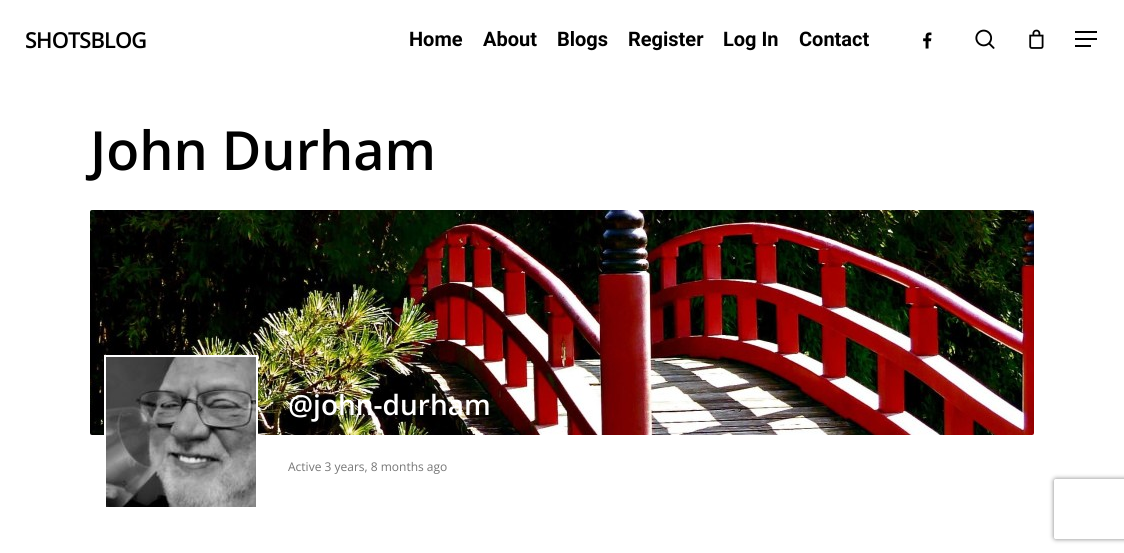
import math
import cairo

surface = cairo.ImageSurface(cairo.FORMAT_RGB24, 1124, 553)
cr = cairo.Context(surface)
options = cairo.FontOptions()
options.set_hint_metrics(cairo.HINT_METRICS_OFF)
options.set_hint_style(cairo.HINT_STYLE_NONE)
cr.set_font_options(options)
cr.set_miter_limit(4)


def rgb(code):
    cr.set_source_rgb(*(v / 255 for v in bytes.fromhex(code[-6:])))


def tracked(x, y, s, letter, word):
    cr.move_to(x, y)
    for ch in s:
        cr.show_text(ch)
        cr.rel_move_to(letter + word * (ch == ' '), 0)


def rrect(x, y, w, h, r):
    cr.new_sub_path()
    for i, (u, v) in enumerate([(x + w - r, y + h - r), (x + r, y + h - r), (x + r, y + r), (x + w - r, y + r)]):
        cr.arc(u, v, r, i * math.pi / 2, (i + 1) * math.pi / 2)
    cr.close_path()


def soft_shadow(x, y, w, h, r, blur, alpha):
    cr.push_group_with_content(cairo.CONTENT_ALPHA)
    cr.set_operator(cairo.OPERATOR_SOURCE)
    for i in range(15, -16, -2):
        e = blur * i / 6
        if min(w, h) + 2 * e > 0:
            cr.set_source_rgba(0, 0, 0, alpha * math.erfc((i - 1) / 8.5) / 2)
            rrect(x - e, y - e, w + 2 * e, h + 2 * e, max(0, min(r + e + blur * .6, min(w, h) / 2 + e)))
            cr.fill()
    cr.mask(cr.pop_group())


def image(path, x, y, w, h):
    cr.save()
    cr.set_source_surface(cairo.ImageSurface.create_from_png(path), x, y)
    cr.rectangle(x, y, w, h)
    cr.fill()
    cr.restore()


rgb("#ffffff")
cr.paint()
image("img/1.png", 923, 32, 9, 17)
image("img/2.png", 975, 29, 20, 20)
image("img/3.png", 1029, 29, 15, 20)
for x, y, w, h, color in [
    (1075, 31, 22, 2, "#000000"),
    (1075, 45, 16, 2, "#000000"),
    (1075, 38, 22, 2, "#000000"),
]:
    rgb(color)
    cr.rectangle(x, y, w, h)
    cr.fill()
image("img/4.png", 90, 210, 944, 225)
cr.rectangle(105, 356, 152, 152)
rgb("#ffffff")
cr.stroke()
image("img/5.png", 106, 357, 150, 150)
cr.save()
cr.set_fill_rule(cairo.FILL_RULE_EVEN_ODD)
cr.new_path()
cr.move_to(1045, 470)
cr.line_to(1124, 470)
cr.line_to(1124, 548)
cr.line_to(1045, 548)
cr.close_path()
cr.move_to(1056, 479)
cr.line_to(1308, 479)
cr.curve_to(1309, 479, 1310, 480, 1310, 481)
cr.line_to(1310, 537)
cr.curve_to(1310, 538, 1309, 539, 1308, 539)
cr.line_to(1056, 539)
cr.curve_to(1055, 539, 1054, 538, 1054, 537)
cr.line_to(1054, 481)
cr.curve_to(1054, 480, 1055, 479, 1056, 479)
cr.close_path()
cr.clip()
rgb("#808080")
soft_shadow(1054, 479, 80, 60, 2, 2.5, 1)
cr.restore()
cr.select_font_face("Open Sans SemiBold")
cr.set_font_size(22)
rgb("#000000")
tracked(25, 48, "SHOTSBLOG", -1, 0)
cr.select_font_face("Roboto", cairo.FONT_SLANT_NORMAL, cairo.FONT_WEIGHT_BOLD)
cr.set_font_size(20)
for x, y, s in [
    (409, 46, "Home"),
    (483, 46, "About"),
    (557, 46, "Blogs"),
    (628, 46, "Register"),
    (723, 46, "Log In"),
    (799, 46, "Contact"),
]:
    cr.move_to(x, y)
    cr.show_text(s)
cr.select_font_face("Open Sans SemiBold")
cr.set_font_size(54)
cr.move_to(90, 170)
cr.show_text("John Durham")
cr.set_font_size(28)
rgb("#ffffff")
cr.move_to(288, 415)
cr.show_text("@john-durham")
cr.select_font_face("Open Sans")
cr.set_font_size(12)
rgb("#767676")
cr.move_to(288, 471)
cr.show_text("Active 3 years, 8 months ago")
surface.write_to_png("page.png")
